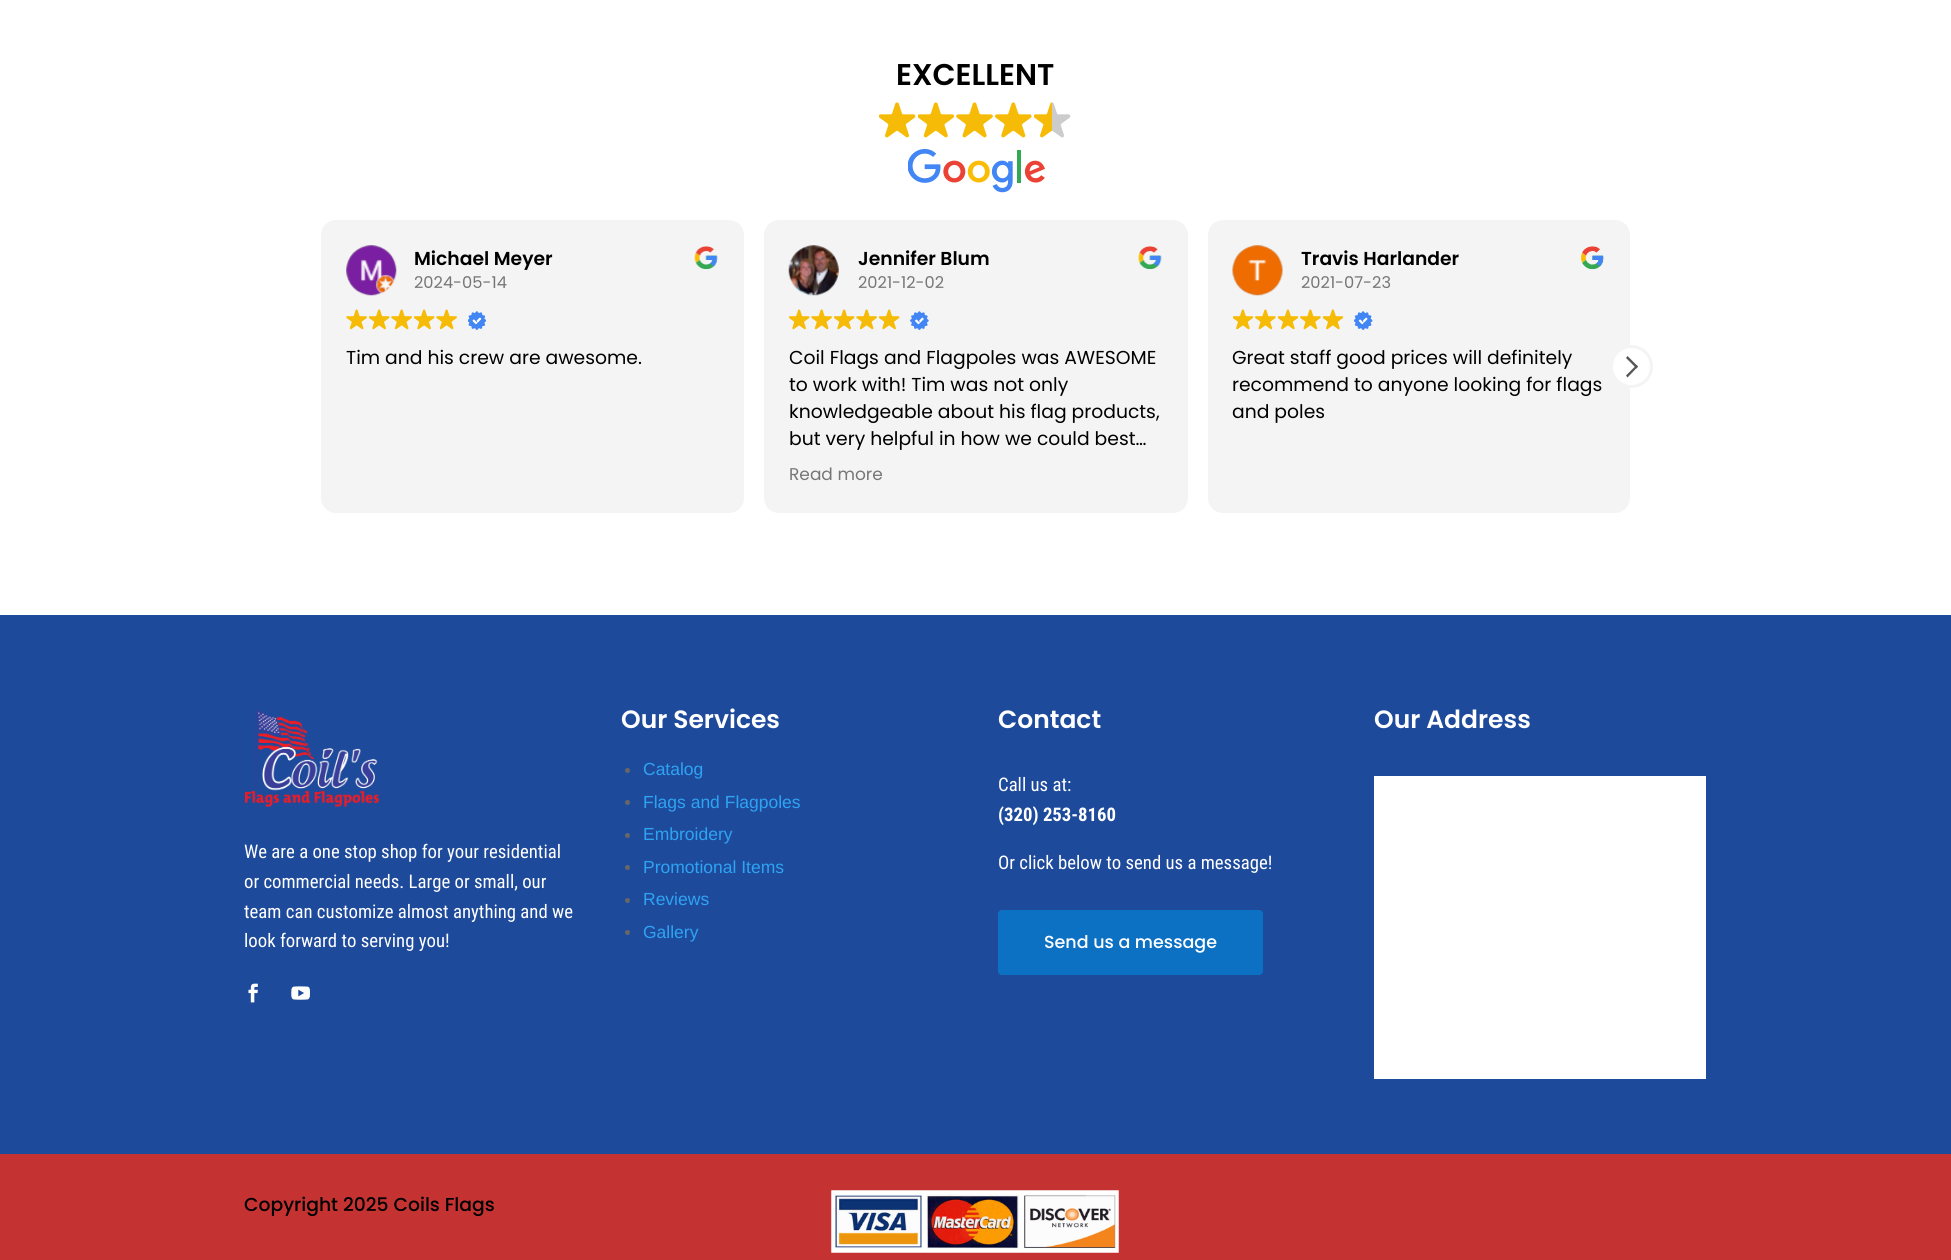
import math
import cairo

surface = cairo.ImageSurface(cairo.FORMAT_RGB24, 1951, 1260)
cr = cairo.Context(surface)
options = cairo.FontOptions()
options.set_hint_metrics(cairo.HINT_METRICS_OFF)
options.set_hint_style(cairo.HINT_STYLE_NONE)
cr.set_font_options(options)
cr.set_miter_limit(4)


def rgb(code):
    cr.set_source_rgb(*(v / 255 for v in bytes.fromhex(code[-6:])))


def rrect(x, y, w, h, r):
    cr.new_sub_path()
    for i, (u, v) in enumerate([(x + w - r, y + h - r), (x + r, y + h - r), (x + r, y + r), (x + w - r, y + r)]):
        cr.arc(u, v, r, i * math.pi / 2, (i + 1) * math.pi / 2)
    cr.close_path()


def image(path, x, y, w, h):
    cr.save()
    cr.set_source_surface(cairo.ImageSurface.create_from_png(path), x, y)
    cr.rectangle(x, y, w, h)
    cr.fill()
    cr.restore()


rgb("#ffffff")
cr.paint()
image("img/1.png", 879, 102, 37, 36)
image("img/2.png", 918, 102, 37, 36)
image("img/3.png", 956, 102, 37, 36)
image("img/4.png", 995, 102, 37, 36)
image("img/5.png", 1034, 102, 37, 36)
image("img/6.png", 908, 149, 137, 44)
rgb("#f4f4f4")
rrect(321, 220, 423, 293, 15)
cr.fill()
image("img/7.png", 346, 245, 51, 51)
image("img/8.png", 694, 246, 24, 24)
image("img/9.png", 346, 309, 21, 21)
image("img/10.png", 369, 309, 21, 21)
image("img/9.png", 391, 309, 21, 21)
image("img/10.png", 414, 309, 21, 21)
image("img/9.png", 436, 309, 21, 21)
image("img/11.png", 468, 311, 18, 19)
rrect(764, 220, 424, 293, 15)
cr.fill()
image("img/12.png", 788, 245, 51, 51)
image("img/13.png", 1138, 246, 24, 24)
image("img/10.png", 789, 309, 21, 21)
image("img/9.png", 811, 309, 21, 21)
image("img/10.png", 834, 309, 21, 21)
image("img/9.png", 856, 309, 21, 21)
image("img/10.png", 879, 309, 21, 21)
image("img/14.png", 910, 311, 19, 19)
rrect(1208, 220, 422, 293, 15)
cr.fill()
image("img/15.png", 1232, 245, 51, 51)
image("img/16.png", 1581, 246, 23, 24)
image("img/17.png", 1233, 309, 21, 21)
image("img/18.png", 1255, 309, 21, 21)
image("img/17.png", 1278, 309, 21, 21)
image("img/18.png", 1300, 309, 21, 21)
image("img/17.png", 1323, 309, 21, 21)
image("img/19.png", 1354, 311, 19, 19)
rgb("#ffffff")
cr.arc(1631.5, 366.5, 20, 0, 2 * math.pi)
cr.fill_preserve()
rgb("#f4f4f4")
cr.set_line_width(3)
cr.stroke()
rgb("#575757")
cr.new_path()
cr.move_to(1636.5, 368.5)
cr.line_to(1626, 358)
cr.line_to(1627.5, 356)
cr.line_to(1638, 366.5)
cr.close_path()
cr.fill()
cr.new_path()
cr.move_to(1627.5, 377.5)
cr.line_to(1626, 375.5)
cr.line_to(1636.5, 365)
cr.line_to(1638, 366.5)
cr.close_path()
cr.fill()
rgb("#1e4a9c")
cr.rectangle(0, 615, 1951, 539)
cr.fill()
image("img/20.png", 245, 709, 134, 98)
image("img/21.png", 248, 983, 10, 20)
image("img/22.png", 291, 986, 19, 14)
rgb("#666666")
cr.arc(627.5, 770.5, 2.5, 0, 2 * math.pi)
cr.fill()
cr.arc(627.5, 802.5, 2.5, 0, 2 * math.pi)
cr.fill()
cr.arc(627.5, 835.5, 2.5, 0, 2 * math.pi)
cr.fill()
cr.arc(627.5, 867.5, 2.5, 0, 2 * math.pi)
cr.fill()
cr.arc(627.5, 900.5, 2.5, 0, 2 * math.pi)
cr.fill()
cr.arc(627.5, 932.5, 2.5, 0, 2 * math.pi)
cr.fill()
rgb("#0c71c3")
rrect(998, 910, 265, 65, 4)
cr.fill()
rgb("#ffffff")
cr.rectangle(1374, 776, 332, 303)
cr.fill()
rgb("#c53232")
cr.rectangle(0, 1154, 1951, 106)
cr.fill()
image("img/23.png", 831, 1190, 288, 63)
cr.select_font_face("Poppins SemiBold")
cr.set_font_size(30)
rgb("#000000")
cr.move_to(896, 85)
cr.show_text("EXCELLENT")
cr.set_font_size(18.75)
cr.move_to(414, 265)
cr.show_text("Michael Meyer")
cr.select_font_face("Poppins")
cr.set_font_size(16.25)
rgb("#767676")
cr.move_to(414, 288)
cr.show_text("2024-05-14")
cr.set_font_size(18.75)
rgb("#000000")
cr.move_to(346, 364)
cr.show_text("Tim and his crew are awesome.")
cr.select_font_face("Poppins SemiBold")
cr.move_to(858, 265)
cr.show_text("Jennifer Blum")
cr.select_font_face("Poppins")
cr.set_font_size(16.25)
rgb("#767676")
cr.move_to(858, 288)
cr.show_text("2021-12-02")
cr.set_font_size(18.75)
rgb("#000000")
for x, y, s in [
    (789, 364, "Coil Flags and Flagpoles was AWESOME"),
    (789, 391, "to work with! Tim was not only"),
    (789, 418, "knowledgeable about his flag products,"),
    (789, 445, "but very helpful in how we could best…"),
]:
    cr.move_to(x, y)
    cr.show_text(s)
cr.set_font_size(17)
rgb("#767676")
cr.move_to(789, 480)
cr.show_text("Read more")
cr.select_font_face("Poppins SemiBold")
cr.set_font_size(18.75)
rgb("#000000")
cr.move_to(1301, 265)
cr.show_text("Travis Harlander")
cr.select_font_face("Poppins")
cr.set_font_size(16.25)
rgb("#767676")
cr.move_to(1301, 288)
cr.show_text("2021-07-23")
cr.set_font_size(18.75)
rgb("#000000")
for x, y, s in [
    (1232, 364, "Great staff good prices will definitely"),
    (1232, 391, "recommend to anyone looking for flags"),
    (1232, 418, "and poles"),
]:
    cr.move_to(x, y)
    cr.show_text(s)
cr.select_font_face("Roboto Condensed")
rgb("#ffffff")
for x, y, s in [
    (244, 858, "We are a one stop shop for your residential"),
    (244, 888, "or commercial needs. Large or small, our"),
    (244, 918, "team can customize almost anything and we"),
    (244, 947, "look forward to serving you!"),
]:
    cr.move_to(x, y)
    cr.show_text(s)
cr.select_font_face("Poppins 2 SemiBold")
cr.set_font_size(25)
cr.move_to(621, 728)
cr.show_text("Our Services")
cr.select_font_face("Liberation Sans")
cr.set_font_size(17.5)
rgb("#2ea3f2")
for x, y, s in [
    (643, 775, "Catalog"),
    (643, 808, "Flags and Flagpoles"),
    (643, 840, "Embroidery"),
    (643, 873, "Promotional Items"),
    (643, 905, "Reviews"),
    (643, 938, "Gallery"),
]:
    cr.move_to(x, y)
    cr.show_text(s)
cr.select_font_face("Poppins 2 SemiBold")
cr.set_font_size(25)
rgb("#ffffff")
cr.move_to(998, 728)
cr.show_text("Contact")
cr.select_font_face("Roboto Condensed")
cr.set_font_size(18.75)
cr.move_to(998, 791)
cr.show_text("Call us at:")
cr.select_font_face("Roboto Condensed", cairo.FONT_SLANT_NORMAL, cairo.FONT_WEIGHT_BOLD)
cr.move_to(998, 821)
cr.show_text("(320) 253-8160")
cr.select_font_face("Roboto Condensed")
cr.move_to(998, 869)
cr.show_text("Or click below to send us a message!")
cr.select_font_face("Poppins Medium")
cr.set_font_size(17.5)
cr.move_to(1044, 948)
cr.show_text("Send us a message")
cr.select_font_face("Poppins 2 SemiBold")
cr.set_font_size(25)
cr.move_to(1374, 728)
cr.show_text("Our Address")
cr.select_font_face("Poppins Medium")
cr.set_font_size(18.75)
rgb("#000000")
cr.move_to(244, 1211)
cr.show_text("Copyright 2025 Coils Flags")
surface.write_to_png("page.png")
